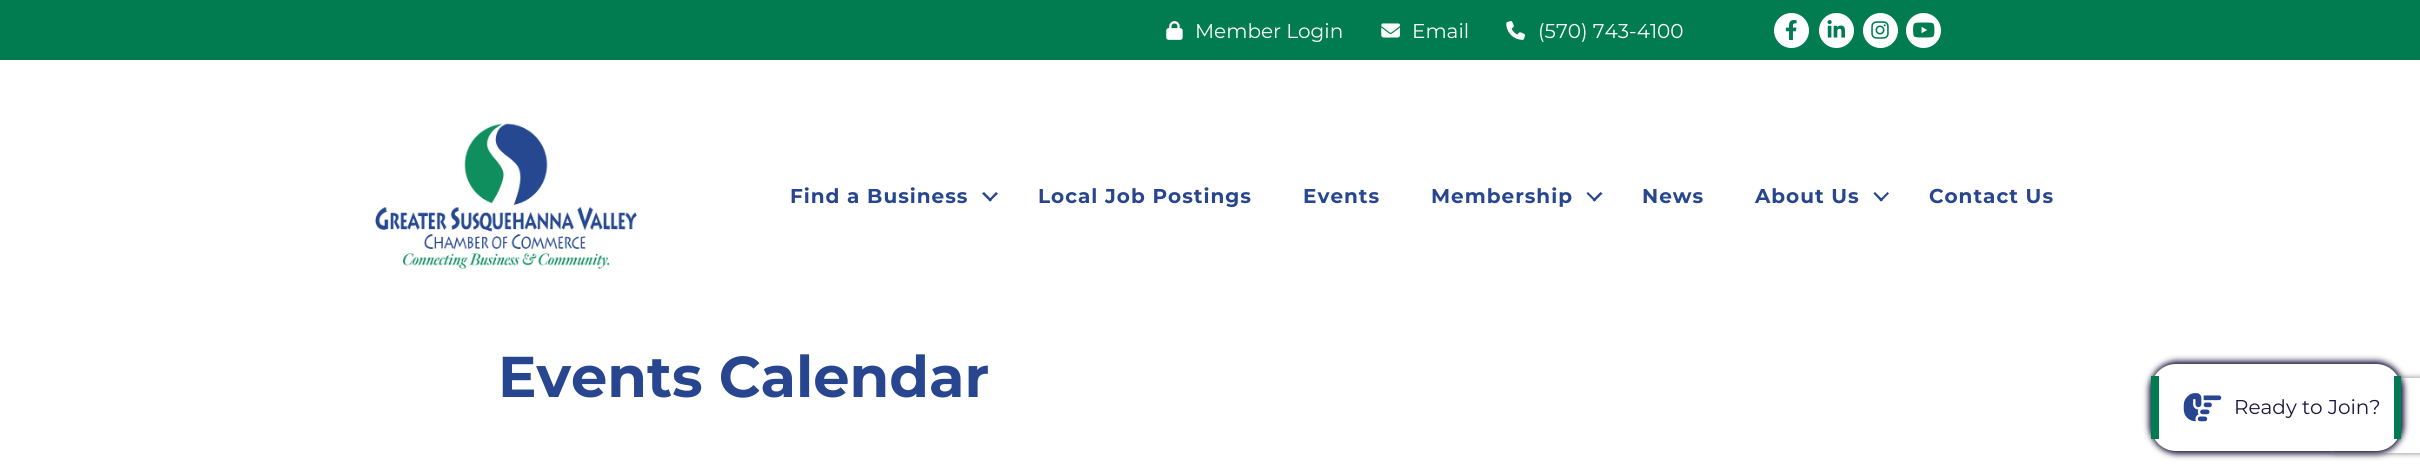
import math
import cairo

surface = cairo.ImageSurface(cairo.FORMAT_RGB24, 2420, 469)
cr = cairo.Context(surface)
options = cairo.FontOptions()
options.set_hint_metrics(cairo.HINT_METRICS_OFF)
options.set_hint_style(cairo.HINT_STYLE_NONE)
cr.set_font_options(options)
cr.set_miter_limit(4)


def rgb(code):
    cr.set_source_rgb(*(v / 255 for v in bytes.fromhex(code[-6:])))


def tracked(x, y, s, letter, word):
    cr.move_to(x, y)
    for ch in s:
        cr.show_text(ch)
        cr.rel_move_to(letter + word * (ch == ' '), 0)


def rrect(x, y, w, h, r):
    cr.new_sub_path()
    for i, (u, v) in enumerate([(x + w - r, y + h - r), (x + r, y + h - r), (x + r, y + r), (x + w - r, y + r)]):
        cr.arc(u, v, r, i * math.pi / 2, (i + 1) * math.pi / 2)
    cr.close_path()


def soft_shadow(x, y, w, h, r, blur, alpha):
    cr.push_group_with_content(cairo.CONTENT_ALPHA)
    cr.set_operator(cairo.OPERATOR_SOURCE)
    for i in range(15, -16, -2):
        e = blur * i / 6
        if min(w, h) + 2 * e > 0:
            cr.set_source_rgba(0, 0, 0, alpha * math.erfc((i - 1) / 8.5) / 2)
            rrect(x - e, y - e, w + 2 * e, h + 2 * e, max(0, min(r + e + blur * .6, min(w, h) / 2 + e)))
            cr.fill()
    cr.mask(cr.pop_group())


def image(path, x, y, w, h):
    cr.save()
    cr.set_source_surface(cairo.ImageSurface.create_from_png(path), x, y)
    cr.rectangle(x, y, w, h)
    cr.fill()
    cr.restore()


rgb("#ffffff")
cr.paint()
rgb("#017c50")
cr.rectangle(0, 0, 2420, 60)
cr.fill()
image("img/1.png", 1166, 21, 17, 19)
image("img/2.png", 1381, 23, 19, 15)
image("img/3.png", 1506, 21, 19, 19)
rgb("#ffffff")
cr.arc(1791.5, 30.5, 17.5, 0, 2 * math.pi)
cr.fill()
image("img/4.png", 1785, 20, 12, 20)
cr.arc(1836.5, 30.5, 17.5, 0, 2 * math.pi)
cr.fill()
image("img/5.png", 1827, 20, 18, 18)
cr.arc(1880.5, 30.5, 17.5, 0, 2 * math.pi)
cr.fill()
image("img/6.png", 1871, 21, 18, 18)
cr.arc(1923.5, 30.5, 17.5, 0, 2 * math.pi)
cr.fill()
image("img/7.png", 1913, 22, 22, 16)
image("img/8.png", 375, 123, 262, 146)
rgb("#28468f")
cr.new_path()
cr.move_to(996, 192)
cr.line_to(998, 193.5)
cr.line_to(990, 201.5)
cr.line_to(988.5, 200)
cr.close_path()
cr.fill()
cr.new_path()
cr.move_to(984, 192)
cr.line_to(992, 200)
cr.line_to(990, 201.5)
cr.line_to(982, 193.5)
cr.close_path()
cr.fill()
cr.new_path()
cr.move_to(1600.5, 192)
cr.line_to(1602.5, 193.5)
cr.line_to(1594.5, 201.5)
cr.line_to(1592.5, 200)
cr.close_path()
cr.fill()
cr.new_path()
cr.move_to(1588, 192)
cr.line_to(1596, 200)
cr.line_to(1594.5, 201.5)
cr.line_to(1586.5, 193.5)
cr.close_path()
cr.fill()
cr.new_path()
cr.move_to(1887.5, 192)
cr.line_to(1889, 193.5)
cr.line_to(1881, 201.5)
cr.line_to(1879.5, 200)
cr.close_path()
cr.fill()
cr.new_path()
cr.move_to(1875, 192)
cr.line_to(1883, 200)
cr.line_to(1881, 201.5)
cr.line_to(1873.5, 193.5)
cr.close_path()
cr.fill()
rgb("#1a153c")
soft_shadow(2149, 361, 255, 93, 28, 3, 1)
cr.save()
cr.set_fill_rule(cairo.FILL_RULE_EVEN_ODD)
cr.new_path()
cr.move_to(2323, 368)
cr.line_to(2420, 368)
cr.line_to(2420, 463)
cr.line_to(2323, 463)
cr.close_path()
cr.move_to(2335.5, 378)
cr.line_to(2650.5, 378)
cr.curve_to(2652, 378, 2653, 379, 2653, 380.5)
cr.line_to(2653, 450.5)
cr.curve_to(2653, 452, 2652, 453, 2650.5, 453)
cr.line_to(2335.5, 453)
cr.curve_to(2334, 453, 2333, 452, 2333, 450.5)
cr.line_to(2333, 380.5)
cr.curve_to(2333, 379, 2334, 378, 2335.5, 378)
cr.close_path()
cr.clip()
rgb("#808080")
soft_shadow(2333, 378, 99, 75, 2.5, 3, 1)
cr.restore()
rgb("#ffffff")
rrect(2151, 364, 250, 87, 25)
cr.fill()
rgb("#017c50")
cr.rectangle(2394, 376, 7, 63)
cr.fill()
cr.rectangle(2151, 376, 8, 63)
cr.fill()
image("img/9.png", 2183, 393, 39, 29)
cr.select_font_face("Montserrat")
cr.set_font_size(20)
rgb("#ffffff")
for x, y, s in [
    (1195, 38, "Member Login"),
    (1412, 38, "Email"),
    (1538, 38, "(570) 743-4100"),
]:
    cr.move_to(x, y)
    cr.show_text(s)
cr.select_font_face("Montserrat", cairo.FONT_SLANT_NORMAL, cairo.FONT_WEIGHT_BOLD)
rgb("#28468f")
for x, y, s in [
    (790, 203, "Find a Business"),
    (1038, 203, "Local Job Postings"),
    (1303, 203, "Events"),
    (1431, 203, "Membership"),
    (1642, 203, "News"),
    (1755, 203, "About Us"),
    (1929, 203, "Contact Us"),
]:
    tracked(x, y, s, 1, 0)
cr.set_font_size(57.5)
cr.move_to(498, 397)
cr.show_text("Events Calendar")
cr.select_font_face("Montserrat")
cr.set_font_size(20)
rgb("#1a153c")
cr.move_to(2234, 414)
cr.show_text("Ready to Join?")
surface.write_to_png("page.png")
